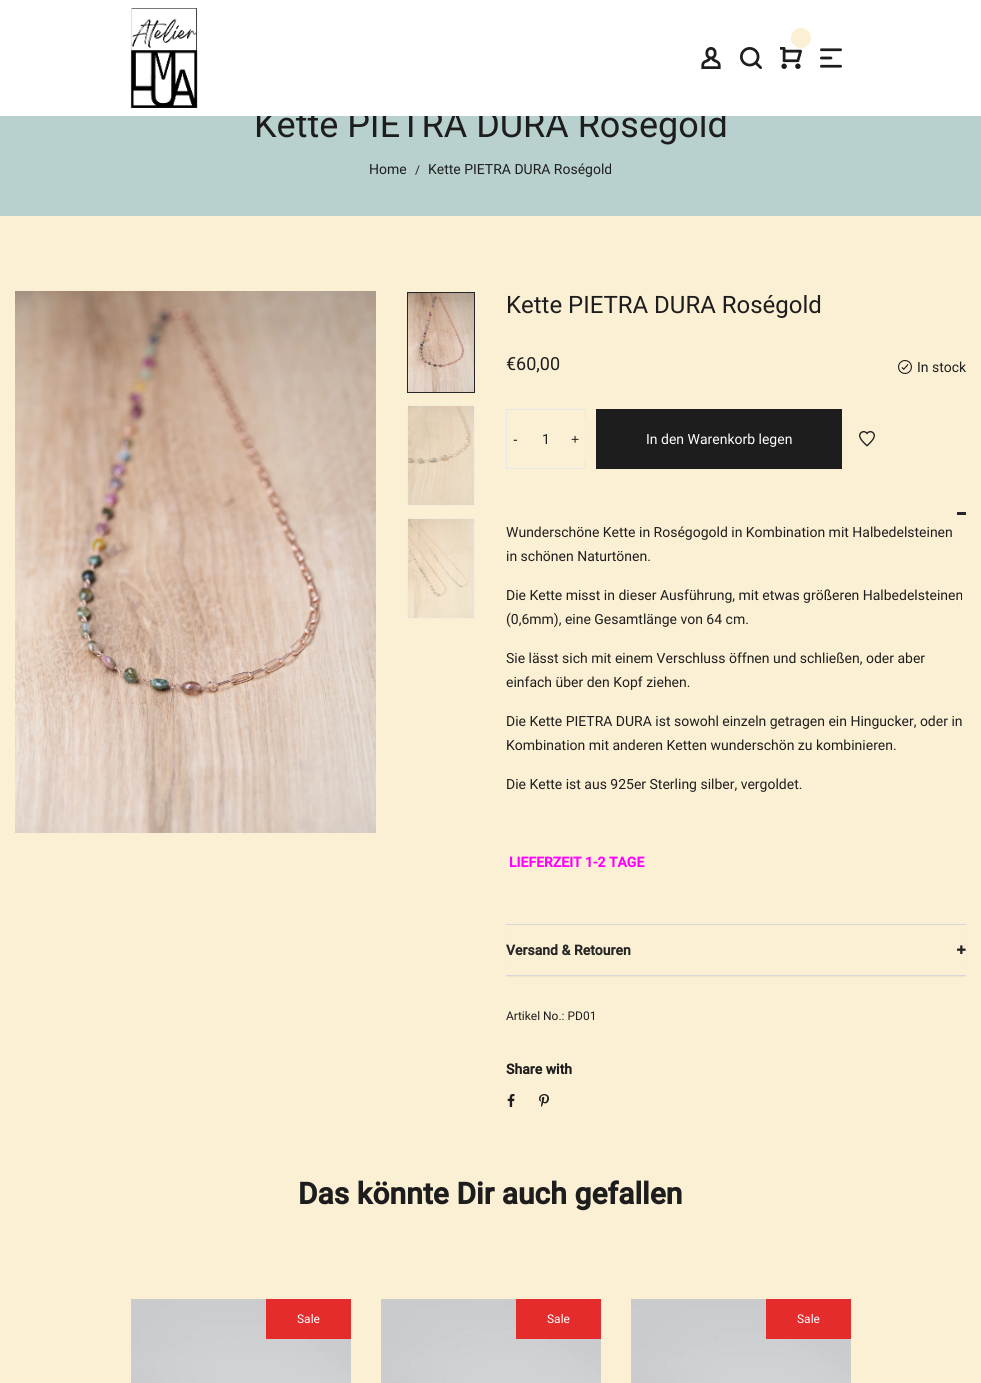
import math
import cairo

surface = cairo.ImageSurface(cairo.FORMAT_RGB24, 981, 1383)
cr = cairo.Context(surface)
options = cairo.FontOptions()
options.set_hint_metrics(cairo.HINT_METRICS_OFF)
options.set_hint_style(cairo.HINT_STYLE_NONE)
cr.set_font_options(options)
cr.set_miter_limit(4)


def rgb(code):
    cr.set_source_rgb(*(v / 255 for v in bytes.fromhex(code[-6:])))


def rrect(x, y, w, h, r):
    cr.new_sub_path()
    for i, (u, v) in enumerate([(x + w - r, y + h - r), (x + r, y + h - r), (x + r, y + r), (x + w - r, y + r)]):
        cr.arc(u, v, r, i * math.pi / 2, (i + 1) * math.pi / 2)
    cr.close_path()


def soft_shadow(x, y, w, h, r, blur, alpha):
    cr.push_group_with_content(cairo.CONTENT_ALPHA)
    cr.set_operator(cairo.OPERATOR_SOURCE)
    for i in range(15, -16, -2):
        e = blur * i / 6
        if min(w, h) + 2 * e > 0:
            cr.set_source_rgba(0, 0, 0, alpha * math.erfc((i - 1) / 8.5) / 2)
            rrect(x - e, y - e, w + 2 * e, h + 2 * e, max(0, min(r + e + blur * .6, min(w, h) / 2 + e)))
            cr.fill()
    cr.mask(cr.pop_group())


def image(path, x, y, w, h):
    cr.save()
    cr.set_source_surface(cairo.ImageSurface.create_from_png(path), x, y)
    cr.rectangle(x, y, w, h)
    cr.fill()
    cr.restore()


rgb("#fcf0d4")
cr.paint()
rgb("#b8d1ce")
cr.rectangle(0, 116, 981, 100)
cr.fill()
image("img/6.png", 15, 291, 361, 542)
cr.rectangle(407.5, 292.5, 67, 100)
rgb("#262626")
cr.set_line_width(1)
cr.stroke()
image("img/7.png", 408, 293, 66, 99)
cr.rectangle(407.5, 405.5, 67, 100)
rgb("#f4ecdc")
cr.stroke()
image("img/8.png", 408, 406, 66, 99)
cr.rectangle(407.5, 518.5, 67, 100)
cr.stroke()
image("img/9.png", 408, 519, 66, 99)
image("img/10.png", 898, 360, 14, 14)
cr.rectangle(506.5, 409.5, 79, 59)
rgb("#e7e7e7")
cr.stroke()
rgb("#eeeeee")
cr.rectangle(585, 419, 1, 40)
cr.fill()
rgb("#1d1d1d")
cr.rectangle(596, 409, 246, 60)
cr.fill()
image("img/11.png", 859, 431, 16, 16)
rgb("#d8d8d8")
cr.rectangle(506, 924, 460, 1)
cr.fill()
rgb("#262626")
cr.rectangle(957, 512, 9, 3)
cr.fill()
rgb("#000000")
soft_shadow(506, 926, 460, 51, 0, 0.5, 0.05)
rgb("#fcf0d4")
cr.rectangle(506, 926, 460, 49)
cr.fill()
rgb("#d8d8d8")
cr.rectangle(506, 975, 460, 1)
cr.fill()
image("img/12.png", 957, 945, 9, 9)
image("img/13.png", 507, 1094, 8, 13)
image("img/14.png", 539, 1094, 10, 13)
image("img/15.png", 131, 1299, 220, 84)
rgb("#e32c2b")
cr.rectangle(266, 1299, 85, 40)
cr.fill()
image("img/16.png", 381, 1299, 220, 84)
cr.rectangle(516, 1299, 85, 40)
cr.fill()
image("img/17.png", 631, 1299, 220, 84)
cr.rectangle(766, 1299, 85, 40)
cr.fill()
cr.select_font_face("Roboto")
cr.set_font_size(36)
rgb("#1d1d1d")
cr.move_to(254, 137)
cr.show_text("Kette PIETRA DURA Roségold")
rgb("#ffffff")
cr.rectangle(0, 0, 981, 116)
cr.fill()
image("img/4.png", 780, 47, 22, 22)
rgb("#fcf0d4")
cr.arc(801, 38, 10, 0, 2 * math.pi)
cr.fill()
image("img/5.png", 820, 48, 22, 20)
image("img/3.png", 740, 47, 22, 22)
image("img/2.png", 701, 47, 20, 22)
image("img/1.png", 130, 8, 68, 100)
cr.set_font_size(14)
rgb("#1d1d1d")
cr.move_to(369, 174)
cr.show_text("Home")
cr.set_font_size(12)
cr.move_to(415, 174)
cr.show_text("/")
cr.set_font_size(14)
cr.move_to(428, 174)
cr.show_text("Kette PIETRA DURA Roségold")
cr.set_font_size(24)
cr.move_to(506, 313)
cr.show_text("Kette PIETRA DURA Roségold")
cr.set_font_size(18)
cr.move_to(506, 370)
cr.show_text("€60,00")
cr.set_font_size(14)
cr.move_to(917, 372)
cr.show_text("In stock")
cr.select_font_face("Liberation Sans")
cr.move_to(513, 444)
cr.show_text("-")
cr.select_font_face("Roboto")
cr.move_to(542, 444)
cr.show_text("1")
cr.select_font_face("Liberation Sans")
cr.move_to(571, 444)
cr.show_text("+")
cr.select_font_face("Roboto")
rgb("#ffffff")
cr.move_to(646, 444)
cr.show_text("In den Warenkorb legen")
rgb("#1d1d1d")
for x, y, s in [
    (506, 537, "Wunderschöne Kette in Roségogold in Kombination mit Halbedelsteinen"),
    (506, 561, "in schönen Naturtönen."),
    (506, 600, "Die Kette misst in dieser Ausführung, mit etwas größeren Halbedelsteinen"),
    (506, 624, "(0,6mm), eine Gesamtlänge von 64 cm."),
    (506, 663, "Sie lässt sich mit einem Verschluss öffnen und schließen, oder aber"),
    (506, 687, "einfach über den Kopf ziehen."),
    (506, 726, "Die Kette PIETRA DURA ist sowohl einzeln getragen ein Hingucker, oder in"),
    (506, 750, "Kombination mit anderen Ketten wunderschön zu kombinieren."),
    (506, 789, "Die Kette ist aus 925er Sterling silber, vergoldet."),
]:
    cr.move_to(x, y)
    cr.show_text(s)
cr.select_font_face("Roboto", cairo.FONT_SLANT_NORMAL, cairo.FONT_WEIGHT_BOLD)
rgb("#ff00ff")
cr.move_to(509, 867)
cr.show_text("LIEFERZEIT 1-2 TAGE")
rgb("#262626")
cr.move_to(506, 955)
cr.show_text("Versand & Retouren")
cr.select_font_face("Roboto")
cr.set_font_size(12)
rgb("#1d1d1d")
cr.move_to(506, 1020)
cr.show_text("Artikel No.: PD01")
cr.select_font_face("Roboto", cairo.FONT_SLANT_NORMAL, cairo.FONT_WEIGHT_BOLD)
cr.set_font_size(14)
cr.move_to(506, 1074)
cr.show_text("Share with")
cr.set_font_size(30)
cr.move_to(298, 1204)
cr.show_text("Das könnte Dir auch gefallen")
cr.select_font_face("Roboto")
cr.set_font_size(12)
rgb("#ffffff")
for x, y, s in [
    (297, 1323, "Sale"),
    (547, 1323, "Sale"),
    (797, 1323, "Sale"),
]:
    cr.move_to(x, y)
    cr.show_text(s)
surface.write_to_png("page.png")
